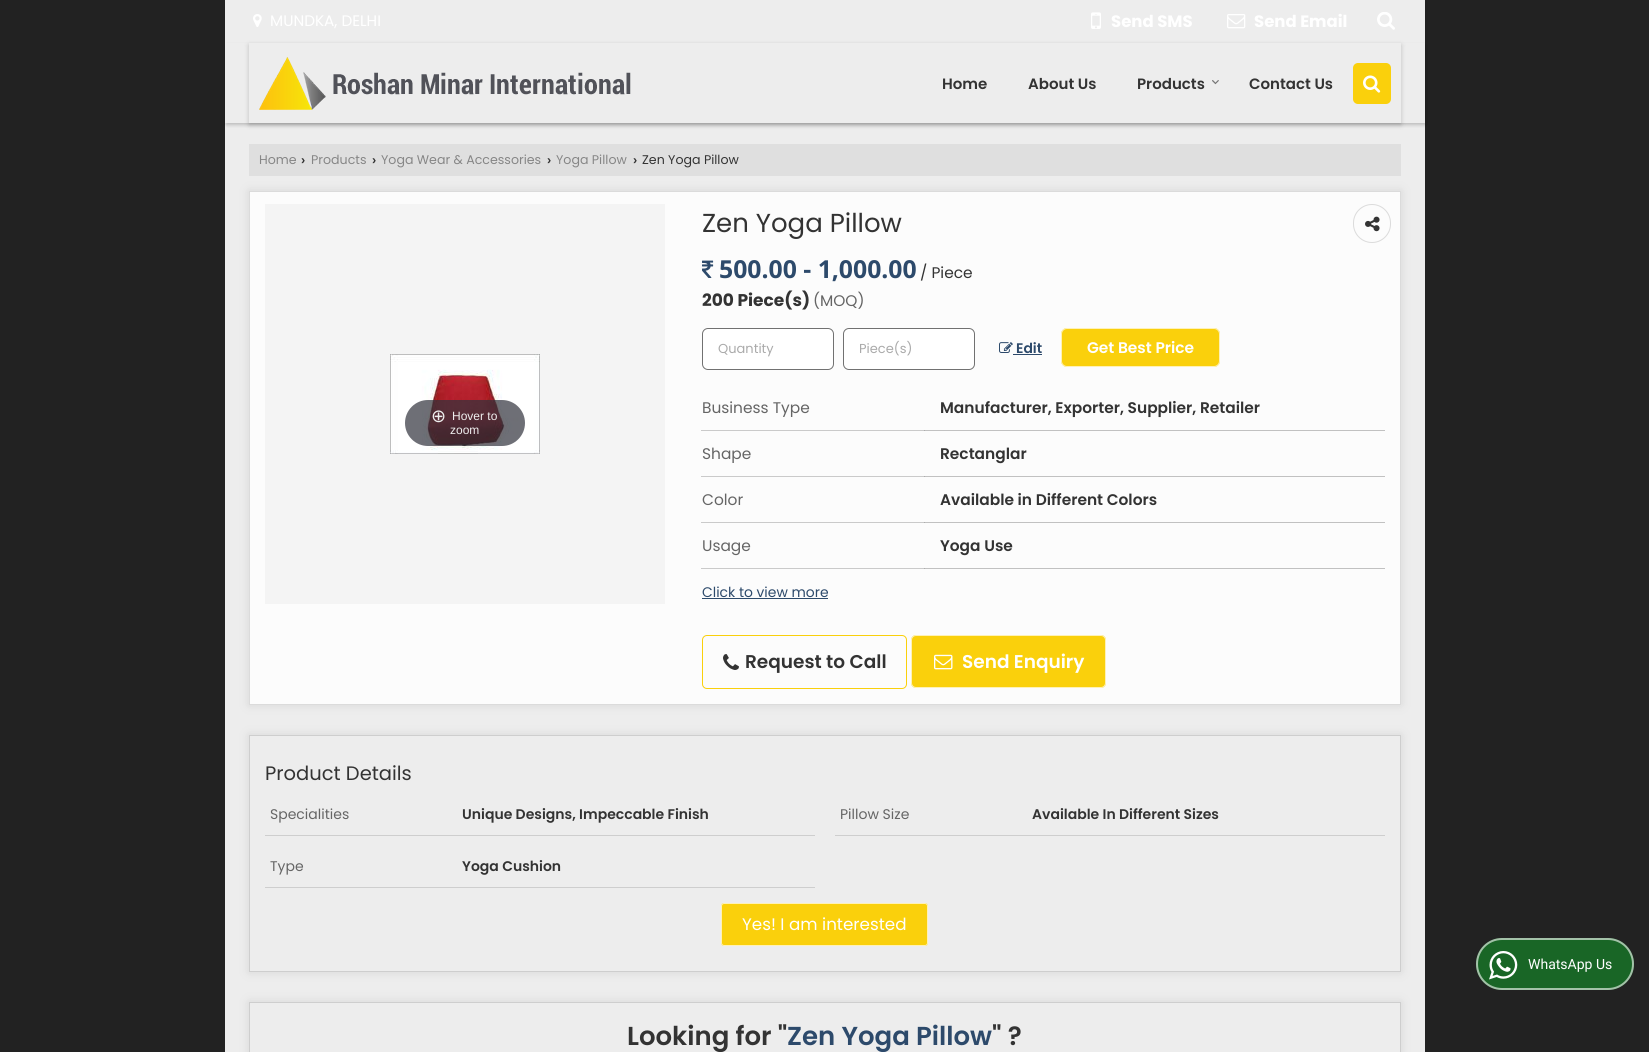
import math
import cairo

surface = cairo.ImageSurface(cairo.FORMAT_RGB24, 1649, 1052)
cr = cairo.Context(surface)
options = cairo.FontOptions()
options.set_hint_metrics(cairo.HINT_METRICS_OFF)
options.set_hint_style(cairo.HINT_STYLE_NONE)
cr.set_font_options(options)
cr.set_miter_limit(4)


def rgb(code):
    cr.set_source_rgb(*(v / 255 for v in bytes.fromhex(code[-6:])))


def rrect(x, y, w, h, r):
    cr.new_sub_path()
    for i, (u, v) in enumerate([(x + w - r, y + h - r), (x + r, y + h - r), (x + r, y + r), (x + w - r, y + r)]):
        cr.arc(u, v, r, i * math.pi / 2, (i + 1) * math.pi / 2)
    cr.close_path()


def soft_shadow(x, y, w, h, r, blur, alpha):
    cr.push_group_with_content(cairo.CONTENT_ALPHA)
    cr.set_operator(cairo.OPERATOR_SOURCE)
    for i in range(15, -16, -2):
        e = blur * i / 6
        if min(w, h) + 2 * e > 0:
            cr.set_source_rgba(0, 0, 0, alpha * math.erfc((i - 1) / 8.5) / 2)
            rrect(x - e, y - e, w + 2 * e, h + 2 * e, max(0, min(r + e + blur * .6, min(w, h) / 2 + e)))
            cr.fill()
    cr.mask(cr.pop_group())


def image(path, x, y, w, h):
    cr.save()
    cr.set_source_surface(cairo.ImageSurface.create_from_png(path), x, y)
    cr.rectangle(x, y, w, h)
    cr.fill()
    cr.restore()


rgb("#222222")
cr.paint()
rgb("#ededed")
cr.rectangle(225, 0, 1200, 1052)
cr.fill()
cr.save()
cr.set_fill_rule(cairo.FILL_RULE_EVEN_ODD)
cr.new_path()
cr.move_to(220, 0)
cr.line_to(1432, 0)
cr.line_to(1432, 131)
cr.line_to(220, 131)
cr.close_path()
cr.move_to(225, 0)
cr.line_to(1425, 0)
cr.line_to(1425, 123)
cr.line_to(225, 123)
cr.close_path()
cr.clip()
rgb("#000000")
soft_shadow(226, 2, 1200, 123, 0, 1.5, 0.1)
cr.restore()
image("img/1.png", 253, 14, 9, 13)
image("img/2.png", 1091, 12, 10, 17)
image("img/3.png", 1227, 14, 19, 15)
image("img/4.png", 1377, 12, 18, 18)
cr.save()
cr.set_fill_rule(cairo.FILL_RULE_EVEN_ODD)
cr.new_path()
cr.move_to(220, 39)
cr.line_to(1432, 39)
cr.line_to(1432, 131)
cr.line_to(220, 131)
cr.close_path()
cr.move_to(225, 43)
cr.line_to(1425, 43)
cr.line_to(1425, 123)
cr.line_to(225, 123)
cr.close_path()
cr.clip()
rgb("#000000")
soft_shadow(226, 45, 1200, 80, 0, 1.5, 0.1)
cr.restore()
cr.save()
cr.set_fill_rule(cairo.FILL_RULE_EVEN_ODD)
cr.new_path()
cr.move_to(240, 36)
cr.line_to(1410, 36)
cr.line_to(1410, 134)
cr.line_to(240, 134)
cr.close_path()
cr.move_to(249, 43)
cr.line_to(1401, 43)
cr.line_to(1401, 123)
cr.line_to(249, 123)
cr.close_path()
cr.clip()
rgb("#000000")
soft_shadow(249, 45, 1152, 80, 0, 2.5, 0.2)
cr.restore()
image("img/5.png", 259, 57, 372, 53)
image("img/6.png", 1212, 80, 7, 5)
rgb("#fad00c")
rrect(1353, 63, 38, 41, 5)
cr.fill()
image("img/7.png", 1363, 75, 18, 18)
rgb("#dfdfdf")
cr.rectangle(249, 144, 1152, 32)
cr.fill()
rgb("#cccccc")
soft_shadow(249, 191, 1152, 514, 0, 5, 0.67)
rgb("#fcfcfc")
cr.rectangle(249.5, 191.5, 1151, 513)
cr.fill_preserve()
rgb("#dbdbdb")
cr.set_line_width(1)
cr.stroke()
rgb("#f4f4f4")
cr.rectangle(265, 204, 400, 400)
cr.fill()
image("img/8.png", 390, 354, 150, 100)
cr.set_source_rgba(0.192, 0.2, 0.239, 0.7)
rrect(405, 400, 120, 46, 23)
cr.fill()
rrect(1353.5, 204.5, 37, 38, 18.5)
rgb("#dbdbdb")
cr.stroke()
image("img/9.png", 1365, 216, 15, 16)
image("img/10.png", 702, 260, 12, 18)
rgb("#ffffff")
rrect(702.5, 328.5, 131, 41, 5.5)
cr.fill_preserve()
rgb("#717171")
cr.stroke()
rgb("#ffffff")
rrect(843.5, 328.5, 131, 41, 5.5)
cr.fill_preserve()
rgb("#717171")
cr.stroke()
image("img/11.png", 999, 342, 14, 11)
rgb("#2d4a6b")
cr.rectangle(1013, 354, 29, 1)
cr.fill()
rgb("#fad00c")
rrect(1061, 328, 159, 39, 6)
cr.fill()
rrect(1061.5, 328.5, 158, 38, 5.5)
cr.set_source_rgba(1, 1, 1, 0.7)
cr.stroke()
for x, y, w, h, color in [
    (701, 430, 224, 1, "#cacaca"),
    (924, 430, 461, 1, "#c1c1c1"),
    (924, 430, 1, 1, "#acacac"),
    (701, 476, 224, 1, "#cacaca"),
    (924, 476, 461, 1, "#c1c1c1"),
    (924, 476, 1, 1, "#acacac"),
    (701, 522, 224, 1, "#cacaca"),
    (924, 522, 461, 1, "#c1c1c1"),
    (924, 522, 1, 1, "#acacac"),
    (701, 568, 224, 1, "#cacaca"),
    (924, 568, 461, 1, "#c1c1c1"),
    (924, 568, 1, 1, "#acacac"),
    (702, 598, 126, 1, "#2d4a6b"),
]:
    rgb(color)
    cr.rectangle(x, y, w, h)
    cr.fill()
rrect(702.5, 635.5, 204, 53, 4.5)
rgb("#fad00c")
cr.stroke()
image("img/12.png", 723, 654, 16, 16)
rrect(911, 635, 195, 53, 5)
cr.fill()
rrect(911.5, 635.5, 194, 52, 4.5)
cr.set_source_rgba(1, 1, 1, 0.7)
cr.stroke()
image("img/13.png", 934, 654, 19, 16)
cr.save()
cr.set_fill_rule(cairo.FILL_RULE_EVEN_ODD)
cr.new_path()
cr.move_to(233, 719)
cr.line_to(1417, 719)
cr.line_to(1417, 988)
cr.line_to(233, 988)
cr.close_path()
cr.move_to(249, 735)
cr.line_to(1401, 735)
cr.line_to(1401, 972)
cr.line_to(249, 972)
cr.close_path()
cr.clip()
rgb("#cccccc")
soft_shadow(249, 735, 1152, 237, 0, 5, 0.67)
cr.restore()
cr.rectangle(249.5, 735.5, 1151, 236)
rgb("#cecece")
cr.stroke()
for x, y, w, h, color in [
    (265, 835, 550, 1, "#cecece"),
    (835, 835, 550, 1, "#cecece"),
    (265, 887, 550, 1, "#cecece"),
]:
    rgb(color)
    cr.rectangle(x, y, w, h)
    cr.fill()
rgb("#fad00c")
rrect(721, 903, 207, 43, 3)
cr.fill()
rrect(721.5, 903.5, 206, 42, 2.5)
cr.set_source_rgba(1, 1, 1, 0.7)
cr.stroke()
cr.save()
cr.set_fill_rule(cairo.FILL_RULE_EVEN_ODD)
cr.new_path()
cr.move_to(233, 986)
cr.line_to(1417, 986)
cr.line_to(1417, 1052)
cr.line_to(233, 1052)
cr.close_path()
cr.move_to(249, 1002)
cr.line_to(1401, 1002)
cr.line_to(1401, 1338)
cr.line_to(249, 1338)
cr.close_path()
cr.clip()
rgb("#cccccc")
soft_shadow(249, 1002, 1152, 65, 0, 5, 0.67)
cr.restore()
cr.rectangle(249.5, 1002.5, 1151, 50)
rgb("#cecece")
cr.stroke()
rgb("#196626")
rrect(1476, 938, 158, 52, 26)
cr.fill()
rrect(1477, 939, 156, 50, 25)
cr.set_source_rgba(1, 1, 1, 0.6)
cr.set_line_width(2)
cr.stroke()
image("img/14.png", 1489, 951, 29, 29)
cr.select_font_face("Poppins")
cr.set_font_size(15.25)
rgb("#ffffff")
cr.move_to(270, 26)
cr.show_text("MUNDKA, DELHI")
cr.select_font_face("Poppins", cairo.FONT_SLANT_NORMAL, cairo.FONT_WEIGHT_BOLD)
cr.set_font_size(16.5)
cr.move_to(1111, 27)
cr.show_text("Send SMS")
cr.move_to(1254, 27)
cr.show_text("Send Email")
cr.select_font_face("Poppins SemiBold")
cr.set_font_size(15)
rgb("#333333")
for x, y, s in [
    (942, 89, "Home"),
    (1028, 89, "About Us"),
    (1137, 89, "Products"),
    (1249, 89, "Contact Us"),
]:
    cr.move_to(x, y)
    cr.show_text(s)
cr.select_font_face("Poppins")
cr.set_font_size(12.6)
rgb("#868686")
cr.move_to(259, 164)
cr.show_text("Home")
cr.select_font_face("Liberation Sans", cairo.FONT_SLANT_NORMAL, cairo.FONT_WEIGHT_BOLD)
rgb("#333333")
cr.move_to(301, 164)
cr.show_text("›")
cr.select_font_face("Poppins")
rgb("#868686")
cr.move_to(311, 164)
cr.show_text("Products")
cr.select_font_face("Liberation Sans", cairo.FONT_SLANT_NORMAL, cairo.FONT_WEIGHT_BOLD)
rgb("#333333")
cr.move_to(372, 164)
cr.show_text("›")
cr.select_font_face("Poppins")
rgb("#868686")
cr.move_to(381, 164)
cr.show_text("Yoga Wear & Accessories")
cr.select_font_face("Liberation Sans", cairo.FONT_SLANT_NORMAL, cairo.FONT_WEIGHT_BOLD)
rgb("#333333")
cr.move_to(547, 164)
cr.show_text("›")
cr.select_font_face("Poppins")
rgb("#868686")
cr.move_to(556, 164)
cr.show_text("Yoga Pillow")
cr.select_font_face("Liberation Sans", cairo.FONT_SLANT_NORMAL, cairo.FONT_WEIGHT_BOLD)
rgb("#333333")
cr.move_to(633, 164)
cr.show_text("›")
cr.select_font_face("Poppins")
cr.move_to(642, 164)
cr.show_text("Zen Yoga Pillow")
cr.select_font_face("DejaVu Sans")
cr.set_font_size(18)
rgb("#eeeeee")
cr.move_to(431, 422)
cr.show_text("⊕")
cr.select_font_face("Liberation Sans")
cr.set_font_size(12)
cr.move_to(452, 420)
cr.show_text("Hover to")
cr.move_to(450, 434)
cr.show_text("zoom")
cr.select_font_face("Poppins")
cr.set_font_size(26)
rgb("#333333")
cr.move_to(702, 232)
cr.show_text("Zen Yoga Pillow")
cr.select_font_face("Open Sans", cairo.FONT_SLANT_NORMAL, cairo.FONT_WEIGHT_BOLD)
cr.set_font_size(24.75)
rgb("#2d4a6b")
cr.move_to(719, 278)
cr.show_text("500.00 - 1,000.00")
cr.select_font_face("Poppins")
cr.set_font_size(15.4)
rgb("#333333")
cr.move_to(920, 278)
cr.show_text("/ Piece")
cr.select_font_face("Poppins", cairo.FONT_SLANT_NORMAL, cairo.FONT_WEIGHT_BOLD)
cr.set_font_size(17)
cr.move_to(702, 306)
cr.show_text("200 Piece(s)")
cr.select_font_face("Poppins")
cr.set_font_size(15.4)
rgb("#656565")
cr.move_to(813, 306)
cr.show_text("(MOQ)")
cr.set_font_size(13)
rgb("#aaaaaa")
cr.move_to(718, 353)
cr.show_text("Quantity")
cr.move_to(859, 353)
cr.show_text("Piece(s)")
cr.select_font_face("Poppins SemiBold")
cr.set_font_size(13.9)
rgb("#2d4a6b")
cr.move_to(1016, 353)
cr.show_text("Edit")
cr.set_font_size(15.4)
rgb("#ffffff")
cr.move_to(1087, 353)
cr.show_text("Get Best Price")
cr.select_font_face("Poppins")
rgb("#656565")
cr.move_to(702, 413)
cr.show_text("Business Type")
cr.select_font_face("Poppins SemiBold")
rgb("#333333")
cr.move_to(940, 413)
cr.show_text("Manufacturer, Exporter, Supplier, Retailer")
cr.select_font_face("Poppins")
rgb("#656565")
cr.move_to(702, 459)
cr.show_text("Shape")
cr.select_font_face("Poppins SemiBold")
rgb("#333333")
cr.move_to(940, 459)
cr.show_text("Rectanglar")
cr.select_font_face("Poppins")
rgb("#656565")
cr.move_to(702, 505)
cr.show_text("Color")
cr.select_font_face("Poppins SemiBold")
rgb("#333333")
cr.move_to(940, 505)
cr.show_text("Available in Different Colors")
cr.select_font_face("Poppins")
rgb("#656565")
cr.move_to(702, 551)
cr.show_text("Usage")
cr.select_font_face("Poppins SemiBold")
rgb("#333333")
cr.move_to(940, 551)
cr.show_text("Yoga Use")
cr.select_font_face("Poppins")
cr.set_font_size(13.9)
rgb("#2d4a6b")
cr.move_to(702, 597)
cr.show_text("Click to view more")
cr.select_font_face("Poppins SemiBold")
cr.set_font_size(18.5)
rgb("#333333")
cr.move_to(745, 668)
cr.show_text("Request to Call")
rgb("#ffffff")
cr.move_to(962, 668)
cr.show_text("Send Enquiry")
cr.select_font_face("Poppins")
cr.set_font_size(19.5)
rgb("#333333")
cr.move_to(265, 780)
cr.show_text("Product Details")
cr.set_font_size(14)
rgb("#656565")
cr.move_to(270, 819)
cr.show_text("Specialities")
cr.select_font_face("Poppins SemiBold")
rgb("#333333")
cr.move_to(462, 819)
cr.show_text("Unique Designs, Impeccable Finish")
cr.select_font_face("Poppins")
rgb("#656565")
cr.move_to(840, 819)
cr.show_text("Pillow Size")
cr.select_font_face("Poppins SemiBold")
rgb("#333333")
cr.move_to(1032, 819)
cr.show_text("Available In Different Sizes")
cr.select_font_face("Poppins")
rgb("#656565")
cr.move_to(270, 871)
cr.show_text("Type")
cr.select_font_face("Poppins SemiBold")
rgb("#333333")
cr.move_to(462, 871)
cr.show_text("Yoga Cushion")
cr.select_font_face("Poppins")
cr.set_font_size(16.75)
rgb("#ffffff")
cr.move_to(742, 930)
cr.show_text("Yes! I am interested")
cr.select_font_face("Poppins SemiBold")
cr.set_font_size(26)
rgb("#333333")
cr.move_to(627, 1045)
cr.show_text("Looking for \"")
rgb("#2d4a6b")
cr.move_to(787, 1045)
cr.show_text("Zen Yoga Pillow")
rgb("#333333")
cr.move_to(992, 1045)
cr.show_text("\" ?")
cr.select_font_face("Roboto")
cr.set_font_size(14)
rgb("#ffffff")
cr.move_to(1528, 969)
cr.show_text("WhatsApp Us")
surface.write_to_png("page.png")
